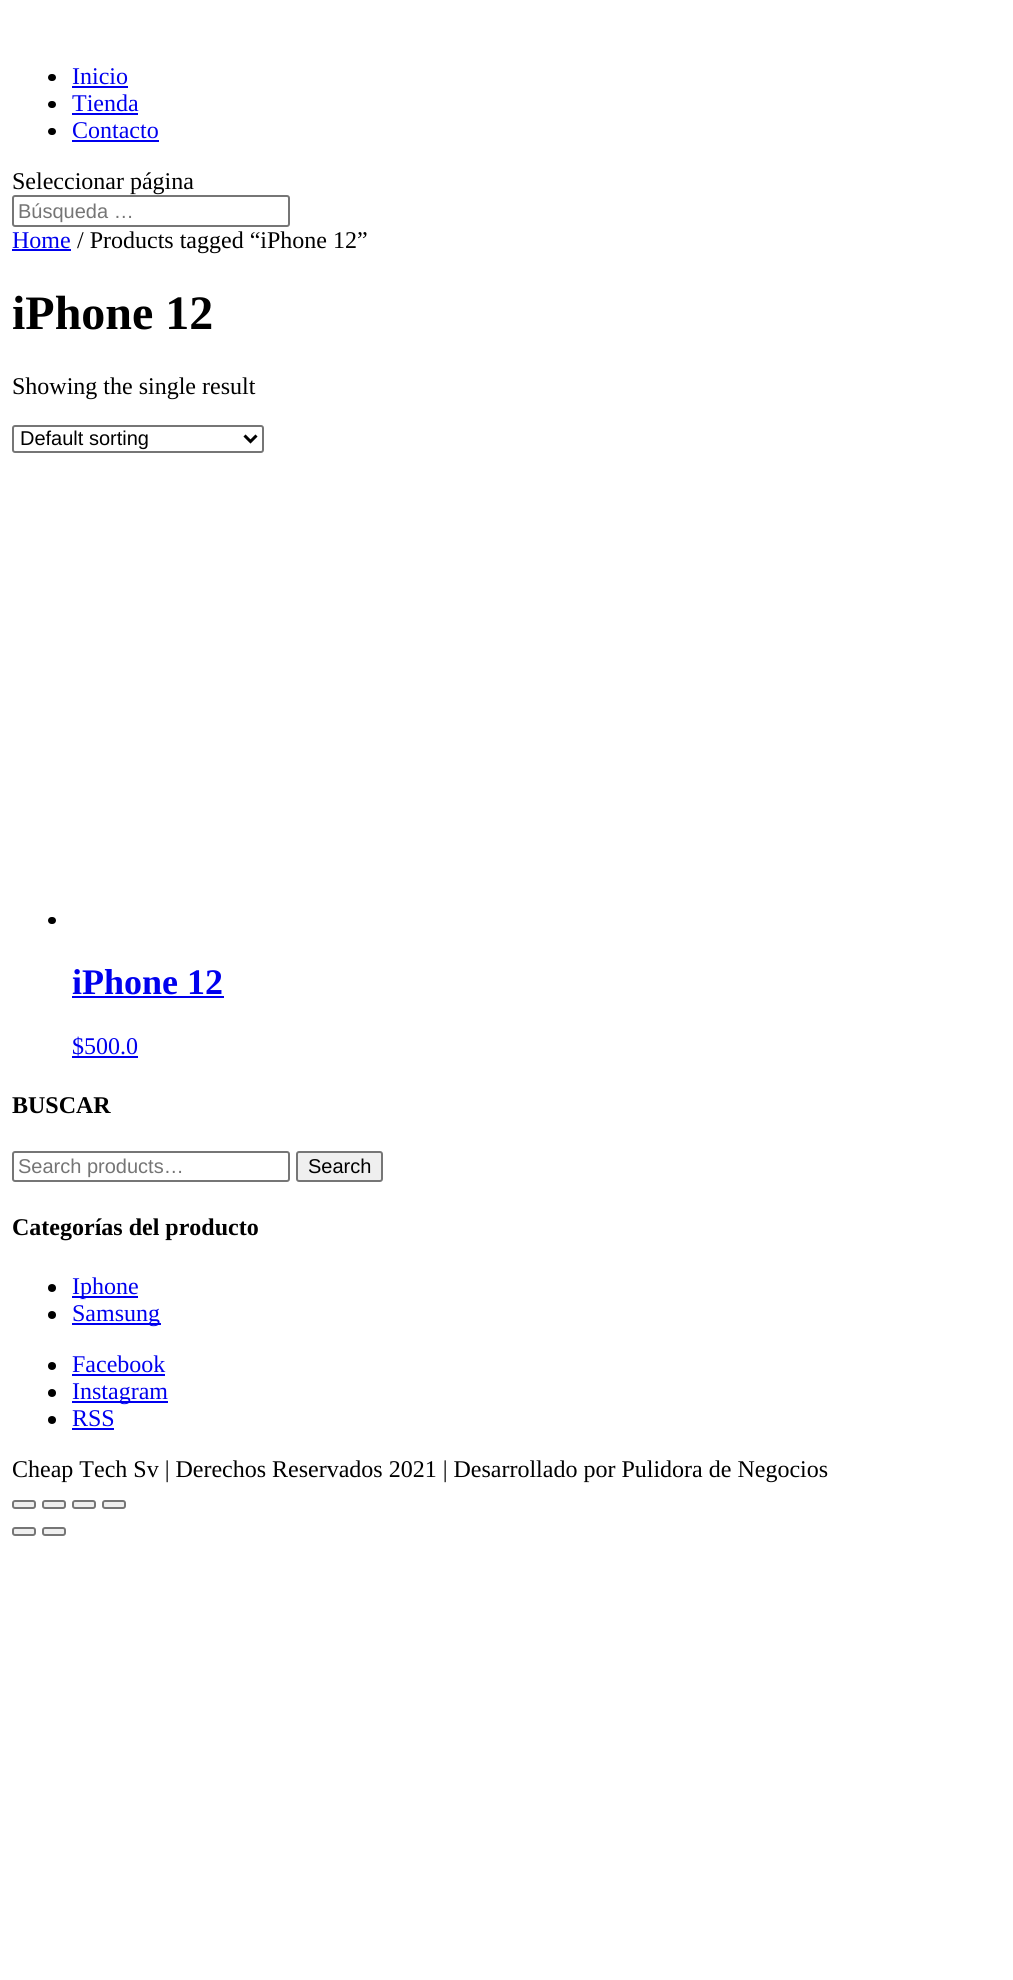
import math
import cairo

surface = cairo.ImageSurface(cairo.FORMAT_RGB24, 1013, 1980)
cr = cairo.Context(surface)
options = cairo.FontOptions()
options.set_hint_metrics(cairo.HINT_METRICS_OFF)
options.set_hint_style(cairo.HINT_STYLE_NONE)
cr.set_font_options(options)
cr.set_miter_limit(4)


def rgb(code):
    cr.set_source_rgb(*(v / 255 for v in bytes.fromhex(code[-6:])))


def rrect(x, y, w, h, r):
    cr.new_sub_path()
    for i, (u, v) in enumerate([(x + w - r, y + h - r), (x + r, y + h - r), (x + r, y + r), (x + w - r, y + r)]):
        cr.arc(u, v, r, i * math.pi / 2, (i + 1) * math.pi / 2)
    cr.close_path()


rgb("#ffffff")
cr.paint()
rgb("#000000")
rrect(48, 74, 8, 7, 3.5)
cr.fill()
rgb("#0000ee")
cr.rectangle(72, 86, 56, 2)
cr.fill()
rgb("#000000")
rrect(48, 101, 8, 7, 3.5)
cr.fill()
rgb("#0000ee")
cr.rectangle(72, 113, 66, 2)
cr.fill()
rgb("#000000")
rrect(48, 128, 8, 7, 3.5)
cr.fill()
rgb("#0000ee")
cr.rectangle(72, 140, 87, 2)
cr.fill()
rrect(13, 196, 276, 30, 2)
rgb("#767676")
cr.stroke()
rgb("#0000ee")
cr.rectangle(12, 249, 59, 2)
cr.fill()
rrect(13, 426, 250, 26, 2)
rgb("#767676")
cr.stroke()
cr.new_path()
cr.move_to(244.5, 435.5)
cr.line_to(250.5, 441.5)
cr.line_to(256.5, 435.5)
rgb("#000000")
cr.set_line_width(3)
cr.stroke()
rrect(48, 917, 8, 7, 3.5)
cr.fill()
rgb("#0000ee")
cr.rectangle(72, 996, 152, 2)
cr.fill()
cr.rectangle(72, 1056, 66, 2)
cr.fill()
rrect(13, 1152, 276, 29, 2)
rgb("#767676")
cr.set_line_width(2)
cr.stroke()
rgb("#efefef")
rrect(297, 1152, 85, 29, 2)
cr.fill_preserve()
rgb("#767676")
cr.stroke()
rgb("#000000")
cr.arc(52, 1288, 4, 0, 2 * math.pi)
cr.fill()
rgb("#0000ee")
cr.rectangle(72, 1296, 66, 2)
cr.fill()
rgb("#000000")
cr.arc(52, 1315, 4, 0, 2 * math.pi)
cr.fill()
rgb("#0000ee")
cr.rectangle(72, 1323, 89, 2)
cr.fill()
rgb("#000000")
cr.arc(52, 1366, 4, 0, 2 * math.pi)
cr.fill()
rgb("#0000ee")
cr.rectangle(72, 1374, 93, 2)
cr.fill()
rgb("#000000")
cr.arc(52, 1393, 4, 0, 2 * math.pi)
cr.fill()
rgb("#0000ee")
cr.rectangle(72, 1401, 96, 2)
cr.fill()
rgb("#000000")
cr.arc(52, 1420, 4, 0, 2 * math.pi)
cr.fill()
rgb("#0000ee")
cr.rectangle(72, 1428, 42, 2)
cr.fill()
rgb("#efefef")
rrect(13, 1501, 22, 7, 2)
cr.fill_preserve()
rgb("#767676")
cr.stroke()
rgb("#efefef")
rrect(43, 1501, 22, 7, 2)
cr.fill_preserve()
rgb("#767676")
cr.stroke()
rgb("#efefef")
rrect(73, 1501, 22, 7, 2)
cr.fill_preserve()
rgb("#767676")
cr.stroke()
rgb("#efefef")
rrect(103, 1501, 22, 7, 2)
cr.fill_preserve()
rgb("#767676")
cr.stroke()
rgb("#efefef")
rrect(13, 1528, 22, 7, 2)
cr.fill_preserve()
rgb("#767676")
cr.stroke()
rgb("#efefef")
rrect(43, 1528, 22, 7, 2)
cr.fill_preserve()
rgb("#767676")
cr.stroke()
cr.select_font_face("Liberation Serif")
cr.set_font_size(24)
rgb("#0000ee")
for x, y, s in [
    (72, 84, "Inicio"),
    (72, 111, "Tienda"),
    (72, 138, "Contacto"),
]:
    cr.move_to(x, y)
    cr.show_text(s)
rgb("#000000")
cr.move_to(12, 189)
cr.show_text("Seleccionar página")
cr.select_font_face("Liberation Sans")
cr.set_font_size(20)
rgb("#757575")
cr.move_to(18, 218)
cr.show_text("Búsqueda …")
cr.select_font_face("Liberation Serif")
cr.set_font_size(24)
rgb("#0000ee")
cr.move_to(12, 248)
cr.show_text("Home")
rgb("#000000")
cr.move_to(77, 248)
cr.show_text("/ Products tagged “iPhone 12”")
cr.select_font_face("Liberation Serif", cairo.FONT_SLANT_NORMAL, cairo.FONT_WEIGHT_BOLD)
cr.set_font_size(48)
cr.move_to(12, 329)
cr.show_text("iPhone 12")
cr.select_font_face("Liberation Serif")
cr.set_font_size(24)
cr.move_to(12, 394)
cr.show_text("Showing the single result")
cr.select_font_face("Liberation Sans")
cr.set_font_size(20)
cr.move_to(20, 445)
cr.show_text("Default sorting")
cr.select_font_face("Liberation Serif", cairo.FONT_SLANT_NORMAL, cairo.FONT_WEIGHT_BOLD)
cr.set_font_size(36)
rgb("#0000ee")
cr.move_to(72, 994)
cr.show_text("iPhone 12")
cr.select_font_face("Liberation Serif")
cr.set_font_size(24)
cr.move_to(72, 1054)
cr.show_text("$500.0")
cr.select_font_face("Liberation Serif", cairo.FONT_SLANT_NORMAL, cairo.FONT_WEIGHT_BOLD)
rgb("#000000")
cr.move_to(12, 1113)
cr.show_text("BUSCAR")
cr.select_font_face("Liberation Sans")
cr.set_font_size(20)
rgb("#757575")
cr.move_to(18, 1173)
cr.show_text("Search products…")
rgb("#000000")
cr.move_to(308, 1173)
cr.show_text("Search")
cr.select_font_face("Liberation Serif", cairo.FONT_SLANT_NORMAL, cairo.FONT_WEIGHT_BOLD)
cr.set_font_size(24)
cr.move_to(12, 1235)
cr.show_text("Categorías del producto")
cr.select_font_face("Liberation Serif")
rgb("#0000ee")
for x, y, s in [
    (72, 1294, "Iphone"),
    (72, 1321, "Samsung"),
    (72, 1372, "Facebook"),
    (72, 1399, "Instagram"),
    (72, 1426, "RSS"),
]:
    cr.move_to(x, y)
    cr.show_text(s)
rgb("#000000")
cr.move_to(12, 1477)
cr.show_text("Cheap Tech Sv | Derechos Reservados 2021 | Desarrollado por Pulidora de Negocios")
surface.write_to_png("page.png")
